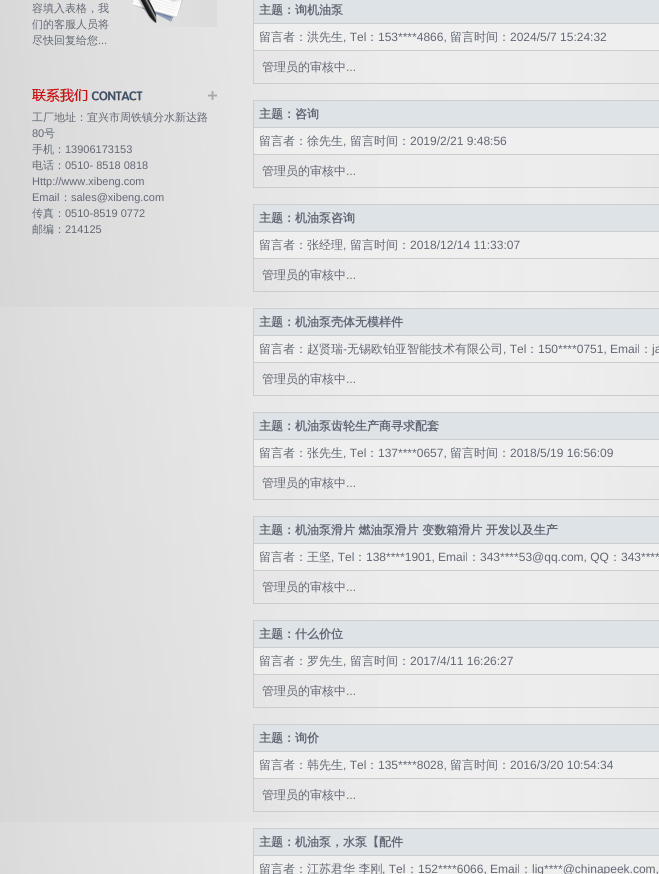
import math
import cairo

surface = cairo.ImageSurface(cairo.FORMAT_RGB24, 659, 874)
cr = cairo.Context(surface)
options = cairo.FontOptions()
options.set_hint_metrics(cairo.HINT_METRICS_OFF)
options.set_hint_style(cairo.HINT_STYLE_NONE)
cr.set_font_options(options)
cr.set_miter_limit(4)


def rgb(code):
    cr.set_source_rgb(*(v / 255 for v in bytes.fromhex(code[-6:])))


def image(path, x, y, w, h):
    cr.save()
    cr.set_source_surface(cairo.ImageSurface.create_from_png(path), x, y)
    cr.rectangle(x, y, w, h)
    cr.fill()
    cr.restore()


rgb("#ffffff")
cr.paint()
image("img/1.png", 0, 0, 659, 874)
image("img/2.png", 131, 0, 86, 27)
image("img/3.png", 32, 88, 185, 16)
for x, y, w, h, color in [
    (254, 0, 405, 23, "#dee3e7"),
    (254, 24, 405, 26, "#efefef"),
    (253, 23, 406, 1, "#cccccc"),
    (253, 50, 406, 1, "#cccccc"),
    (253, 83, 406, 1, "#cccccc"),
    (253, 50, 1, 34, "#cccccc"),
    (253, 0, 1, 51, "#cccccc"),
    (254, 101, 405, 26, "#dee3e7"),
    (253, 100, 406, 1, "#cccccc"),
    (253, 127, 406, 1, "#cccccc"),
    (253, 154, 406, 1, "#cccccc"),
    (253, 187, 406, 1, "#cccccc"),
    (253, 154, 1, 34, "#cccccc"),
    (253, 127, 1, 28, "#cccccc"),
    (253, 100, 1, 28, "#cccccc"),
    (254, 128, 405, 26, "#efefef"),
    (254, 205, 405, 26, "#dee3e7"),
    (253, 204, 406, 1, "#cccccc"),
    (253, 231, 406, 1, "#cccccc"),
    (253, 258, 406, 1, "#cccccc"),
    (253, 291, 406, 1, "#cccccc"),
    (253, 258, 1, 34, "#cccccc"),
    (253, 231, 1, 28, "#cccccc"),
    (253, 204, 1, 28, "#cccccc"),
    (254, 232, 405, 26, "#efefef"),
    (254, 309, 405, 26, "#dee3e7"),
    (253, 308, 406, 1, "#cccccc"),
    (253, 335, 406, 1, "#cccccc"),
    (253, 362, 406, 1, "#cccccc"),
    (253, 395, 406, 1, "#cccccc"),
    (253, 362, 1, 34, "#cccccc"),
    (253, 335, 1, 28, "#cccccc"),
    (253, 308, 1, 28, "#cccccc"),
    (254, 336, 405, 26, "#efefef"),
    (254, 413, 405, 26, "#dee3e7"),
    (253, 412, 406, 1, "#cccccc"),
    (253, 439, 406, 1, "#cccccc"),
    (253, 466, 406, 1, "#cccccc"),
    (253, 499, 406, 1, "#cccccc"),
    (253, 466, 1, 34, "#cccccc"),
    (253, 439, 1, 28, "#cccccc"),
    (253, 412, 1, 28, "#cccccc"),
    (254, 440, 405, 26, "#efefef"),
    (254, 517, 405, 26, "#dee3e7"),
    (253, 516, 406, 1, "#cccccc"),
    (253, 543, 406, 1, "#cccccc"),
    (253, 570, 406, 1, "#cccccc"),
    (253, 603, 406, 1, "#cccccc"),
    (253, 570, 1, 34, "#cccccc"),
    (253, 543, 1, 28, "#cccccc"),
    (253, 516, 1, 28, "#cccccc"),
    (254, 544, 405, 26, "#efefef"),
    (254, 621, 405, 26, "#dee3e7"),
    (253, 620, 406, 1, "#cccccc"),
    (253, 647, 406, 1, "#cccccc"),
    (253, 674, 406, 1, "#cccccc"),
    (253, 707, 406, 1, "#cccccc"),
    (253, 674, 1, 34, "#cccccc"),
    (253, 647, 1, 28, "#cccccc"),
    (253, 620, 1, 28, "#cccccc"),
    (254, 648, 405, 26, "#efefef"),
    (254, 725, 405, 26, "#dee3e7"),
    (253, 724, 406, 1, "#cccccc"),
    (253, 751, 406, 1, "#cccccc"),
    (253, 778, 406, 1, "#cccccc"),
    (253, 811, 406, 1, "#cccccc"),
    (253, 778, 1, 34, "#cccccc"),
    (253, 751, 1, 28, "#cccccc"),
    (253, 724, 1, 28, "#cccccc"),
    (254, 752, 405, 26, "#efefef"),
    (254, 829, 405, 26, "#dee3e7"),
    (253, 828, 406, 1, "#cccccc"),
    (253, 855, 406, 1, "#cccccc"),
    (253, 855, 1, 19, "#cccccc"),
    (253, 828, 1, 28, "#cccccc"),
    (254, 856, 405, 18, "#efefef"),
]:
    rgb(color)
    cr.rectangle(x, y, w, h)
    cr.fill()
cr.select_font_face("WenQuanYi Zen Hei Medium")
cr.set_font_size(11)
rgb("#626874")
for x, y, s in [
    (32, 12, "容填入表格，我"),
    (32, 28, "们的客服人员将"),
    (32, 44, "尽快回复给您"),
]:
    cr.move_to(x, y)
    cr.show_text(s)
cr.select_font_face("Liberation Sans")
cr.move_to(98, 44)
cr.show_text("...")
cr.select_font_face("WenQuanYi Zen Hei Medium")
cr.move_to(32, 121)
cr.show_text("工厂地址：宜兴市周铁镇分水新达路")
cr.select_font_face("Liberation Sans")
cr.move_to(32, 137)
cr.show_text("80")
cr.select_font_face("WenQuanYi Zen Hei Medium")
cr.move_to(44, 137)
cr.show_text("号")
cr.move_to(32, 153)
cr.show_text("手机：")
cr.select_font_face("Liberation Sans")
cr.move_to(65, 153)
cr.show_text("13906173153")
cr.select_font_face("WenQuanYi Zen Hei Medium")
cr.move_to(32, 169)
cr.show_text("电话：")
cr.select_font_face("Liberation Sans")
for x, y, s in [
    (65, 169, "0510- 8518 0818"),
    (32, 185, "Http://www.xibeng.com"),
    (32, 201, "Email"),
]:
    cr.move_to(x, y)
    cr.show_text(s)
cr.select_font_face("WenQuanYi Zen Hei Medium")
cr.move_to(60, 201)
cr.show_text("：")
cr.select_font_face("Liberation Sans")
cr.move_to(71, 201)
cr.show_text("sales@xibeng.com")
cr.select_font_face("WenQuanYi Zen Hei Medium")
cr.move_to(32, 217)
cr.show_text("传真：")
cr.select_font_face("Liberation Sans")
cr.move_to(65, 217)
cr.show_text("0510-8519 0772")
cr.select_font_face("WenQuanYi Zen Hei Medium")
cr.move_to(32, 233)
cr.show_text("邮编：")
cr.select_font_face("Liberation Sans")
cr.move_to(65, 233)
cr.show_text("214125")
cr.select_font_face("WenQuanYi Zen Hei", cairo.FONT_SLANT_NORMAL, cairo.FONT_WEIGHT_BOLD)
cr.set_font_size(12)
cr.move_to(259, 14)
cr.show_text("主题：询机油泵")
cr.select_font_face("WenQuanYi Zen Hei Medium")
cr.move_to(259, 41)
cr.show_text("留言者：洪先生")
cr.select_font_face("Liberation Sans")
cr.move_to(343, 41)
cr.show_text(", Tel")
cr.select_font_face("WenQuanYi Zen Hei Medium")
cr.move_to(366, 41)
cr.show_text("：")
cr.select_font_face("Liberation Sans")
cr.move_to(378, 41)
cr.show_text("153****4866,")
cr.select_font_face("WenQuanYi Zen Hei Medium")
cr.move_to(450, 41)
cr.show_text("留言时间：")
cr.select_font_face("Liberation Sans")
cr.move_to(510, 41)
cr.show_text("2024/5/7 15:24:32")
cr.select_font_face("WenQuanYi Zen Hei Medium")
cr.move_to(262, 71)
cr.show_text("管理员的审核中")
cr.select_font_face("Liberation Sans")
cr.move_to(346, 71)
cr.show_text("...")
cr.select_font_face("WenQuanYi Zen Hei", cairo.FONT_SLANT_NORMAL, cairo.FONT_WEIGHT_BOLD)
cr.move_to(259, 118)
cr.show_text("主题：咨询")
cr.select_font_face("WenQuanYi Zen Hei Medium")
cr.move_to(259, 145)
cr.show_text("留言者：徐先生")
cr.select_font_face("Liberation Sans")
cr.move_to(343, 145)
cr.show_text(",")
cr.select_font_face("WenQuanYi Zen Hei Medium")
cr.move_to(350, 145)
cr.show_text("留言时间：")
cr.select_font_face("Liberation Sans")
cr.move_to(410, 145)
cr.show_text("2019/2/21 9:48:56")
cr.select_font_face("WenQuanYi Zen Hei Medium")
cr.move_to(262, 175)
cr.show_text("管理员的审核中")
cr.select_font_face("Liberation Sans")
cr.move_to(346, 175)
cr.show_text("...")
cr.select_font_face("WenQuanYi Zen Hei", cairo.FONT_SLANT_NORMAL, cairo.FONT_WEIGHT_BOLD)
cr.move_to(259, 222)
cr.show_text("主题：机油泵咨询")
cr.select_font_face("WenQuanYi Zen Hei Medium")
cr.move_to(259, 249)
cr.show_text("留言者：张经理")
cr.select_font_face("Liberation Sans")
cr.move_to(343, 249)
cr.show_text(",")
cr.select_font_face("WenQuanYi Zen Hei Medium")
cr.move_to(350, 249)
cr.show_text("留言时间：")
cr.select_font_face("Liberation Sans")
cr.move_to(410, 249)
cr.show_text("2018/12/14 11:33:07")
cr.select_font_face("WenQuanYi Zen Hei Medium")
cr.move_to(262, 279)
cr.show_text("管理员的审核中")
cr.select_font_face("Liberation Sans")
cr.move_to(346, 279)
cr.show_text("...")
cr.select_font_face("WenQuanYi Zen Hei", cairo.FONT_SLANT_NORMAL, cairo.FONT_WEIGHT_BOLD)
cr.move_to(259, 326)
cr.show_text("主题：机油泵壳体无模样件")
cr.select_font_face("WenQuanYi Zen Hei Medium")
cr.move_to(259, 353)
cr.show_text("留言者：赵贤瑞")
cr.select_font_face("Liberation Sans")
cr.move_to(343, 353)
cr.show_text("-")
cr.select_font_face("WenQuanYi Zen Hei Medium")
cr.move_to(347, 353)
cr.show_text("无锡欧铂亚智能技术有限公司")
cr.select_font_face("Liberation Sans")
cr.move_to(503, 353)
cr.show_text(", Tel")
cr.select_font_face("WenQuanYi Zen Hei Medium")
cr.move_to(526, 353)
cr.show_text("：")
cr.select_font_face("Liberation Sans")
cr.move_to(538, 353)
cr.show_text("150****0751, Email")
cr.select_font_face("WenQuanYi Zen Hei Medium")
cr.move_to(640, 353)
cr.show_text("：")
cr.select_font_face("Liberation Sans")
cr.move_to(652, 353)
cr.show_text("ja")
cr.select_font_face("WenQuanYi Zen Hei Medium")
cr.move_to(262, 383)
cr.show_text("管理员的审核中")
cr.select_font_face("Liberation Sans")
cr.move_to(346, 383)
cr.show_text("...")
cr.select_font_face("WenQuanYi Zen Hei", cairo.FONT_SLANT_NORMAL, cairo.FONT_WEIGHT_BOLD)
cr.move_to(259, 430)
cr.show_text("主题：机油泵齿轮生产商寻求配套")
cr.select_font_face("WenQuanYi Zen Hei Medium")
cr.move_to(259, 457)
cr.show_text("留言者：张先生")
cr.select_font_face("Liberation Sans")
cr.move_to(343, 457)
cr.show_text(", Tel")
cr.select_font_face("WenQuanYi Zen Hei Medium")
cr.move_to(366, 457)
cr.show_text("：")
cr.select_font_face("Liberation Sans")
cr.move_to(378, 457)
cr.show_text("137****0657,")
cr.select_font_face("WenQuanYi Zen Hei Medium")
cr.move_to(450, 457)
cr.show_text("留言时间：")
cr.select_font_face("Liberation Sans")
cr.move_to(510, 457)
cr.show_text("2018/5/19 16:56:09")
cr.select_font_face("WenQuanYi Zen Hei Medium")
cr.move_to(262, 487)
cr.show_text("管理员的审核中")
cr.select_font_face("Liberation Sans")
cr.move_to(346, 487)
cr.show_text("...")
cr.select_font_face("WenQuanYi Zen Hei", cairo.FONT_SLANT_NORMAL, cairo.FONT_WEIGHT_BOLD)
cr.move_to(259, 534)
cr.show_text("主题：机油泵滑片 燃油泵滑片 变数箱滑片 开发以及生产")
cr.select_font_face("WenQuanYi Zen Hei Medium")
cr.move_to(259, 561)
cr.show_text("留言者：王坚")
cr.select_font_face("Liberation Sans")
cr.move_to(331, 561)
cr.show_text(", Tel")
cr.select_font_face("WenQuanYi Zen Hei Medium")
cr.move_to(354, 561)
cr.show_text("：")
cr.select_font_face("Liberation Sans")
cr.move_to(366, 561)
cr.show_text("138****1901, Email")
cr.select_font_face("WenQuanYi Zen Hei Medium")
cr.move_to(468, 561)
cr.show_text("：")
cr.select_font_face("Liberation Sans")
cr.move_to(480, 561)
cr.show_text("343****53@qq.com, QQ")
cr.select_font_face("WenQuanYi Zen Hei Medium")
cr.move_to(609, 561)
cr.show_text("：")
cr.select_font_face("Liberation Sans")
cr.move_to(621, 561)
cr.show_text("343****")
cr.select_font_face("WenQuanYi Zen Hei Medium")
cr.move_to(262, 591)
cr.show_text("管理员的审核中")
cr.select_font_face("Liberation Sans")
cr.move_to(346, 591)
cr.show_text("...")
cr.select_font_face("WenQuanYi Zen Hei", cairo.FONT_SLANT_NORMAL, cairo.FONT_WEIGHT_BOLD)
cr.move_to(259, 638)
cr.show_text("主题：什么价位")
cr.select_font_face("WenQuanYi Zen Hei Medium")
cr.move_to(259, 665)
cr.show_text("留言者：罗先生")
cr.select_font_face("Liberation Sans")
cr.move_to(343, 665)
cr.show_text(",")
cr.select_font_face("WenQuanYi Zen Hei Medium")
cr.move_to(350, 665)
cr.show_text("留言时间：")
cr.select_font_face("Liberation Sans")
cr.move_to(410, 665)
cr.show_text("2017/4/11 16:26:27")
cr.select_font_face("WenQuanYi Zen Hei Medium")
cr.move_to(262, 695)
cr.show_text("管理员的审核中")
cr.select_font_face("Liberation Sans")
cr.move_to(346, 695)
cr.show_text("...")
cr.select_font_face("WenQuanYi Zen Hei", cairo.FONT_SLANT_NORMAL, cairo.FONT_WEIGHT_BOLD)
cr.move_to(259, 742)
cr.show_text("主题：询价")
cr.select_font_face("WenQuanYi Zen Hei Medium")
cr.move_to(259, 769)
cr.show_text("留言者：韩先生")
cr.select_font_face("Liberation Sans")
cr.move_to(343, 769)
cr.show_text(", Tel")
cr.select_font_face("WenQuanYi Zen Hei Medium")
cr.move_to(366, 769)
cr.show_text("：")
cr.select_font_face("Liberation Sans")
cr.move_to(378, 769)
cr.show_text("135****8028,")
cr.select_font_face("WenQuanYi Zen Hei Medium")
cr.move_to(450, 769)
cr.show_text("留言时间：")
cr.select_font_face("Liberation Sans")
cr.move_to(510, 769)
cr.show_text("2016/3/20 10:54:34")
cr.select_font_face("WenQuanYi Zen Hei Medium")
cr.move_to(262, 799)
cr.show_text("管理员的审核中")
cr.select_font_face("Liberation Sans")
cr.move_to(346, 799)
cr.show_text("...")
cr.select_font_face("WenQuanYi Zen Hei", cairo.FONT_SLANT_NORMAL, cairo.FONT_WEIGHT_BOLD)
cr.move_to(259, 846)
cr.show_text("主题：机油泵，水泵【配件")
cr.select_font_face("WenQuanYi Zen Hei Medium")
cr.move_to(259, 873)
cr.show_text("留言者：江苏君华 李刚")
cr.select_font_face("Liberation Sans")
cr.move_to(382, 873)
cr.show_text(", Tel")
cr.select_font_face("WenQuanYi Zen Hei Medium")
cr.move_to(406, 873)
cr.show_text("：")
cr.select_font_face("Liberation Sans")
cr.move_to(418, 873)
cr.show_text("152****6066, Email")
cr.select_font_face("WenQuanYi Zen Hei Medium")
cr.move_to(520, 873)
cr.show_text("：")
cr.select_font_face("Liberation Sans")
cr.move_to(532, 873)
cr.show_text("lig****@chinapeek.com,")
surface.write_to_png("page.png")
